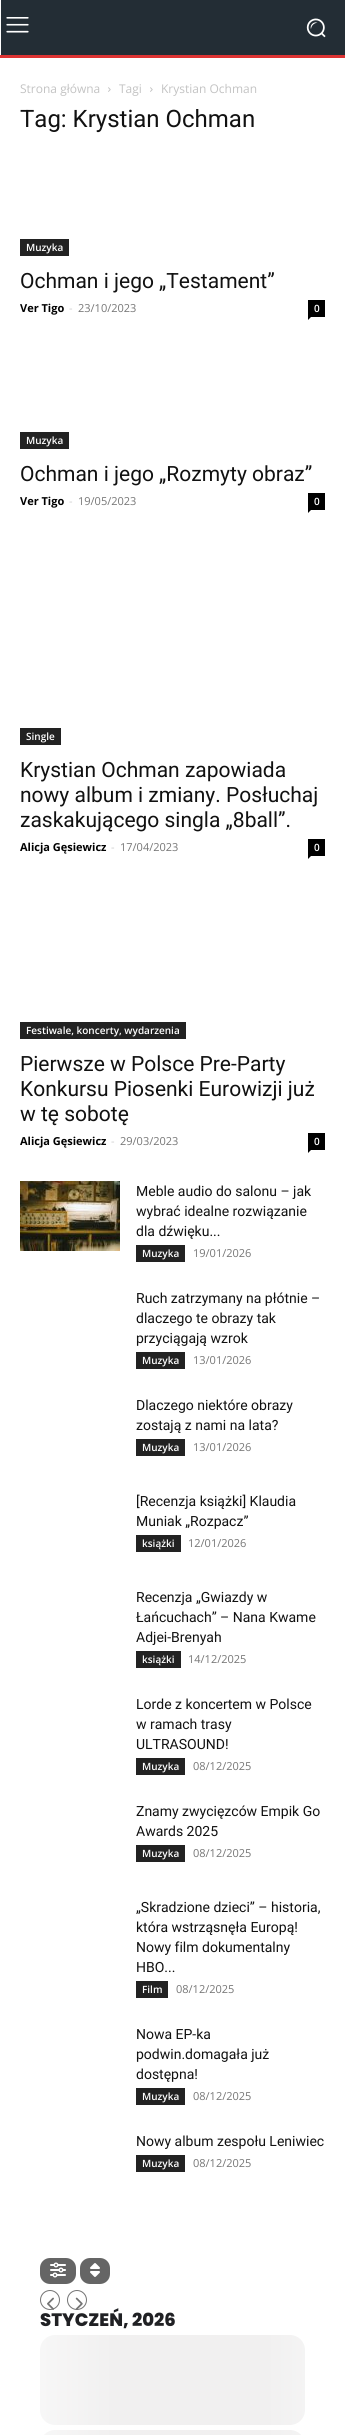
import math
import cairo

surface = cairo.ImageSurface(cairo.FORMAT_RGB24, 345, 2435)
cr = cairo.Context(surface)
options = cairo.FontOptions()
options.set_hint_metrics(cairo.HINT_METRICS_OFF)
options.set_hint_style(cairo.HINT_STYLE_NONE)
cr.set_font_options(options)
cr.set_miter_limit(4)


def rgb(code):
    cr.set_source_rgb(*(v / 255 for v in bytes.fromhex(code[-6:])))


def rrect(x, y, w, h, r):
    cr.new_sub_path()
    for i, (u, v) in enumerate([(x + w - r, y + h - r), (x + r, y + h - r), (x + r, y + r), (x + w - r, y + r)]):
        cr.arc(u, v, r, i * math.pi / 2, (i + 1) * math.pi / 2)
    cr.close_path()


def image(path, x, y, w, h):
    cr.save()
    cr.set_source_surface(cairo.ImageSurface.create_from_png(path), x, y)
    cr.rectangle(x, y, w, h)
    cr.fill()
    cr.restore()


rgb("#ffffff")
cr.paint()
rgb("#232d35")
cr.rectangle(1, 0, 344, 55)
cr.fill()
image("img/1.png", 6, 17, 23, 16)
image("img/2.png", 306, 18, 20, 20)
rgb("#dd3333")
cr.rectangle(0, 55, 345, 3)
cr.fill()
image("img/3.png", 108, 87, 3, 5)
image("img/3.png", 150, 87, 3, 5)
rgb("#222222")
cr.rectangle(20, 239, 49, 17)
cr.fill()
rgb("#000000")
cr.rectangle(308, 300, 17, 17)
cr.fill()
cr.new_path()
cr.move_to(308, 317)
cr.line_to(311, 317)
cr.line_to(308, 320)
cr.close_path()
cr.fill()
rgb("#222222")
cr.rectangle(20, 432, 49, 17)
cr.fill()
rgb("#000000")
cr.rectangle(308, 493, 17, 17)
cr.fill()
cr.new_path()
cr.move_to(308, 510)
cr.line_to(311, 510)
cr.line_to(308, 513)
cr.close_path()
cr.fill()
rgb("#222222")
cr.rectangle(20, 728, 41, 17)
cr.fill()
rgb("#000000")
cr.rectangle(308, 839, 17, 17)
cr.fill()
cr.new_path()
cr.move_to(308, 856)
cr.line_to(311, 856)
cr.line_to(308, 859)
cr.close_path()
cr.fill()
rgb("#222222")
cr.rectangle(20, 1022, 166, 17)
cr.fill()
rgb("#000000")
cr.rectangle(308, 1133, 17, 17)
cr.fill()
cr.new_path()
cr.move_to(308, 1150)
cr.line_to(311, 1150)
cr.line_to(308, 1153)
cr.close_path()
cr.fill()
image("img/4.png", 20, 1181, 100, 70)
for x, y, w, h, color in [
    (136, 1245, 49, 17, "#222222"),
    (136, 1352, 49, 17, "#222222"),
    (136, 1439, 49, 17, "#222222"),
    (136, 1535, 45, 17, "#222222"),
    (136, 1651, 45, 17, "#222222"),
    (136, 1758, 49, 17, "#222222"),
    (136, 1845, 49, 17, "#222222"),
    (136, 1981, 32, 17, "#222222"),
    (136, 2088, 49, 17, "#222222"),
    (136, 2155, 49, 17, "#222222"),
]:
    rgb(color)
    cr.rectangle(x, y, w, h)
    cr.fill()
rgb("#656565")
rrect(40, 2258, 36, 26, 10)
cr.fill()
image("img/5.png", 50, 2262, 16, 16)
rrect(80, 2258, 30, 26, 10)
cr.fill()
image("img/6.png", 90, 2263, 10, 14)
gradient = cairo.LinearGradient(40, 2380, 340, 2380)
gradient.add_color_stop_rgba(0, 0.969, 0.969, 0.969, 1)
gradient.add_color_stop_rgba(0.25, 0.945, 0.941, 0.941, 1)
gradient.add_color_stop_rgba(0.75, 0.945, 0.941, 0.941, 1)
gradient.add_color_stop_rgba(1, 0.969, 0.969, 0.969, 1)
cr.set_source(gradient)
rrect(40, 2335, 265, 90, 15)
cr.fill()
gradient = cairo.LinearGradient(40, 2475, 340, 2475)
gradient.add_color_stop_rgba(0, 0.969, 0.969, 0.969, 1)
gradient.add_color_stop_rgba(0.25, 0.945, 0.941, 0.941, 1)
gradient.add_color_stop_rgba(0.75, 0.945, 0.941, 0.941, 1)
gradient.add_color_stop_rgba(1, 0.969, 0.969, 0.969, 1)
cr.set_source(gradient)
rrect(40, 2430, 265, 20, 15)
cr.fill()
cr.select_font_face("Open Sans")
cr.set_font_size(12)
rgb("#c3c3c3")
for x, y, s in [
    (20, 93, "Strona główna"),
    (119, 93, "Tagi"),
    (161, 93, "Krystian Ochman"),
]:
    cr.move_to(x, y)
    cr.show_text(s)
cr.select_font_face("Roboto")
cr.set_font_size(24)
rgb("#111111")
cr.move_to(20, 127)
cr.show_text("Tag: Krystian Ochman")
cr.select_font_face("Open Sans SemiBold")
cr.set_font_size(10)
rgb("#ffffff")
cr.move_to(26, 251)
cr.show_text("Muzyka")
cr.select_font_face("Roboto")
cr.set_font_size(21)
rgb("#111111")
cr.move_to(20, 288)
cr.show_text("Ochman i jego „Testament”")
cr.select_font_face("Open Sans", cairo.FONT_SLANT_NORMAL, cairo.FONT_WEIGHT_BOLD)
cr.set_font_size(11)
rgb("#000000")
cr.move_to(20, 312)
cr.show_text("Ver Tigo")
cr.select_font_face("Open Sans")
rgb("#cccccc")
cr.move_to(69, 312)
cr.show_text("-")
rgb("#767676")
cr.move_to(78, 312)
cr.show_text("23/10/2023")
cr.select_font_face("Open Sans SemiBold")
cr.set_font_size(10)
rgb("#ffffff")
cr.move_to(314, 312)
cr.show_text("0")
cr.move_to(26, 444)
cr.show_text("Muzyka")
cr.select_font_face("Roboto")
cr.set_font_size(21)
rgb("#111111")
cr.move_to(20, 481)
cr.show_text("Ochman i jego „Rozmyty obraz”")
cr.select_font_face("Open Sans", cairo.FONT_SLANT_NORMAL, cairo.FONT_WEIGHT_BOLD)
cr.set_font_size(11)
rgb("#000000")
cr.move_to(20, 505)
cr.show_text("Ver Tigo")
cr.select_font_face("Open Sans")
rgb("#cccccc")
cr.move_to(69, 505)
cr.show_text("-")
rgb("#767676")
cr.move_to(78, 505)
cr.show_text("19/05/2023")
cr.select_font_face("Open Sans SemiBold")
cr.set_font_size(10)
rgb("#ffffff")
cr.move_to(314, 505)
cr.show_text("0")
cr.move_to(26, 740)
cr.show_text("Single")
cr.select_font_face("Roboto")
cr.set_font_size(21)
rgb("#111111")
for x, y, s in [
    (20, 777, "Krystian Ochman zapowiada"),
    (20, 802, "nowy album i zmiany. Posłuchaj"),
    (20, 827, "zaskakującego singla „8ball”."),
]:
    cr.move_to(x, y)
    cr.show_text(s)
cr.select_font_face("Open Sans", cairo.FONT_SLANT_NORMAL, cairo.FONT_WEIGHT_BOLD)
cr.set_font_size(11)
rgb("#000000")
cr.move_to(20, 851)
cr.show_text("Alicja Gęsiewicz")
cr.select_font_face("Open Sans")
rgb("#cccccc")
cr.move_to(111, 851)
cr.show_text("-")
rgb("#767676")
cr.move_to(120, 851)
cr.show_text("17/04/2023")
cr.select_font_face("Open Sans SemiBold")
cr.set_font_size(10)
rgb("#ffffff")
cr.move_to(314, 851)
cr.show_text("0")
cr.move_to(26, 1034)
cr.show_text("Festiwale, koncerty, wydarzenia")
cr.select_font_face("Roboto")
cr.set_font_size(21)
rgb("#111111")
for x, y, s in [
    (20, 1071, "Pierwsze w Polsce Pre-Party"),
    (20, 1096, "Konkursu Piosenki Eurowizji już"),
    (20, 1121, "w tę sobotę"),
]:
    cr.move_to(x, y)
    cr.show_text(s)
cr.select_font_face("Open Sans", cairo.FONT_SLANT_NORMAL, cairo.FONT_WEIGHT_BOLD)
cr.set_font_size(11)
rgb("#000000")
cr.move_to(20, 1145)
cr.show_text("Alicja Gęsiewicz")
cr.select_font_face("Open Sans")
rgb("#cccccc")
cr.move_to(111, 1145)
cr.show_text("-")
rgb("#767676")
cr.move_to(120, 1145)
cr.show_text("29/03/2023")
cr.select_font_face("Open Sans SemiBold")
cr.set_font_size(10)
rgb("#ffffff")
cr.move_to(314, 1145)
cr.show_text("0")
cr.select_font_face("Roboto")
cr.set_font_size(14)
rgb("#111111")
for x, y, s in [
    (136, 1196, "Meble audio do salonu – jak"),
    (136, 1216, "wybrać idealne rozwiązanie"),
    (136, 1236, "dla dźwięku..."),
]:
    cr.move_to(x, y)
    cr.show_text(s)
cr.select_font_face("Open Sans SemiBold")
cr.set_font_size(10)
rgb("#ffffff")
cr.move_to(142, 1257)
cr.show_text("Muzyka")
cr.select_font_face("Open Sans")
cr.set_font_size(11)
rgb("#767676")
cr.move_to(193, 1257)
cr.show_text("19/01/2026")
cr.select_font_face("Roboto")
cr.set_font_size(14)
rgb("#111111")
for x, y, s in [
    (136, 1303, "Ruch zatrzymany na płótnie –"),
    (136, 1323, "dlaczego te obrazy tak"),
    (136, 1343, "przyciągają wzrok"),
]:
    cr.move_to(x, y)
    cr.show_text(s)
cr.select_font_face("Open Sans SemiBold")
cr.set_font_size(10)
rgb("#ffffff")
cr.move_to(142, 1364)
cr.show_text("Muzyka")
cr.select_font_face("Open Sans")
cr.set_font_size(11)
rgb("#767676")
cr.move_to(193, 1364)
cr.show_text("13/01/2026")
cr.select_font_face("Roboto")
cr.set_font_size(14)
rgb("#111111")
cr.move_to(136, 1410)
cr.show_text("Dlaczego niektóre obrazy")
cr.move_to(136, 1430)
cr.show_text("zostają z nami na lata?")
cr.select_font_face("Open Sans SemiBold")
cr.set_font_size(10)
rgb("#ffffff")
cr.move_to(142, 1451)
cr.show_text("Muzyka")
cr.select_font_face("Open Sans")
cr.set_font_size(11)
rgb("#767676")
cr.move_to(193, 1451)
cr.show_text("13/01/2026")
cr.select_font_face("Roboto")
cr.set_font_size(14)
rgb("#111111")
cr.move_to(136, 1506)
cr.show_text("[Recenzja książki] Klaudia")
cr.move_to(136, 1526)
cr.show_text("Muniak „Rozpacz”")
cr.select_font_face("Open Sans SemiBold")
cr.set_font_size(10)
rgb("#ffffff")
cr.move_to(142, 1547)
cr.show_text("książki")
cr.select_font_face("Open Sans")
cr.set_font_size(11)
rgb("#767676")
cr.move_to(188, 1547)
cr.show_text("12/01/2026")
cr.select_font_face("Roboto")
cr.set_font_size(14)
rgb("#111111")
for x, y, s in [
    (136, 1602, "Recenzja „Gwiazdy w"),
    (136, 1622, "Łańcuchach” – Nana Kwame"),
    (136, 1642, "Adjei-Brenyah"),
]:
    cr.move_to(x, y)
    cr.show_text(s)
cr.select_font_face("Open Sans SemiBold")
cr.set_font_size(10)
rgb("#ffffff")
cr.move_to(142, 1663)
cr.show_text("książki")
cr.select_font_face("Open Sans")
cr.set_font_size(11)
rgb("#767676")
cr.move_to(188, 1663)
cr.show_text("14/12/2025")
cr.select_font_face("Roboto")
cr.set_font_size(14)
rgb("#111111")
for x, y, s in [
    (136, 1709, "Lorde z koncertem w Polsce"),
    (136, 1729, "w ramach trasy"),
    (136, 1749, "ULTRASOUND!"),
]:
    cr.move_to(x, y)
    cr.show_text(s)
cr.select_font_face("Open Sans SemiBold")
cr.set_font_size(10)
rgb("#ffffff")
cr.move_to(142, 1770)
cr.show_text("Muzyka")
cr.select_font_face("Open Sans")
cr.set_font_size(11)
rgb("#767676")
cr.move_to(193, 1770)
cr.show_text("08/12/2025")
cr.select_font_face("Roboto")
cr.set_font_size(14)
rgb("#111111")
cr.move_to(136, 1816)
cr.show_text("Znamy zwycięzców Empik Go")
cr.move_to(136, 1836)
cr.show_text("Awards 2025")
cr.select_font_face("Open Sans SemiBold")
cr.set_font_size(10)
rgb("#ffffff")
cr.move_to(142, 1857)
cr.show_text("Muzyka")
cr.select_font_face("Open Sans")
cr.set_font_size(11)
rgb("#767676")
cr.move_to(193, 1857)
cr.show_text("08/12/2025")
cr.select_font_face("Roboto")
cr.set_font_size(14)
rgb("#111111")
for x, y, s in [
    (136, 1912, "„Skradzione dzieci” – historia,"),
    (136, 1932, "która wstrząsnęła Europą!"),
    (136, 1952, "Nowy film dokumentalny"),
    (136, 1972, "HBO..."),
]:
    cr.move_to(x, y)
    cr.show_text(s)
cr.select_font_face("Open Sans SemiBold")
cr.set_font_size(10)
rgb("#ffffff")
cr.move_to(142, 1993)
cr.show_text("Film")
cr.select_font_face("Open Sans")
cr.set_font_size(11)
rgb("#767676")
cr.move_to(176, 1993)
cr.show_text("08/12/2025")
cr.select_font_face("Roboto")
cr.set_font_size(14)
rgb("#111111")
for x, y, s in [
    (136, 2039, "Nowa EP-ka"),
    (136, 2059, "podwin.domagała już"),
    (136, 2079, "dostępna!"),
]:
    cr.move_to(x, y)
    cr.show_text(s)
cr.select_font_face("Open Sans SemiBold")
cr.set_font_size(10)
rgb("#ffffff")
cr.move_to(142, 2100)
cr.show_text("Muzyka")
cr.select_font_face("Open Sans")
cr.set_font_size(11)
rgb("#767676")
cr.move_to(193, 2100)
cr.show_text("08/12/2025")
cr.select_font_face("Roboto")
cr.set_font_size(14)
rgb("#111111")
cr.move_to(136, 2146)
cr.show_text("Nowy album zespołu Leniwiec")
cr.select_font_face("Open Sans SemiBold")
cr.set_font_size(10)
rgb("#ffffff")
cr.move_to(142, 2167)
cr.show_text("Muzyka")
cr.select_font_face("Open Sans")
cr.set_font_size(11)
rgb("#767676")
cr.move_to(193, 2167)
cr.show_text("08/12/2025")
cr.select_font_face("Poppins ExtraBold")
cr.set_font_size(18)
rgb("#202124")
cr.move_to(40, 2326)
cr.show_text("STYCZEŃ, 2026")
cr.new_path()
cr.arc(77, 2300, 9.5, 0, 2 * math.pi)
rgb("#737373")
cr.set_line_width(1)
cr.stroke()
image("img/8.png", 75, 2297, 8, 13)
cr.arc(50, 2300, 9.5, 0, 2 * math.pi)
cr.stroke()
image("img/7.png", 47, 2297, 7, 13)
surface.write_to_png("page.png")
